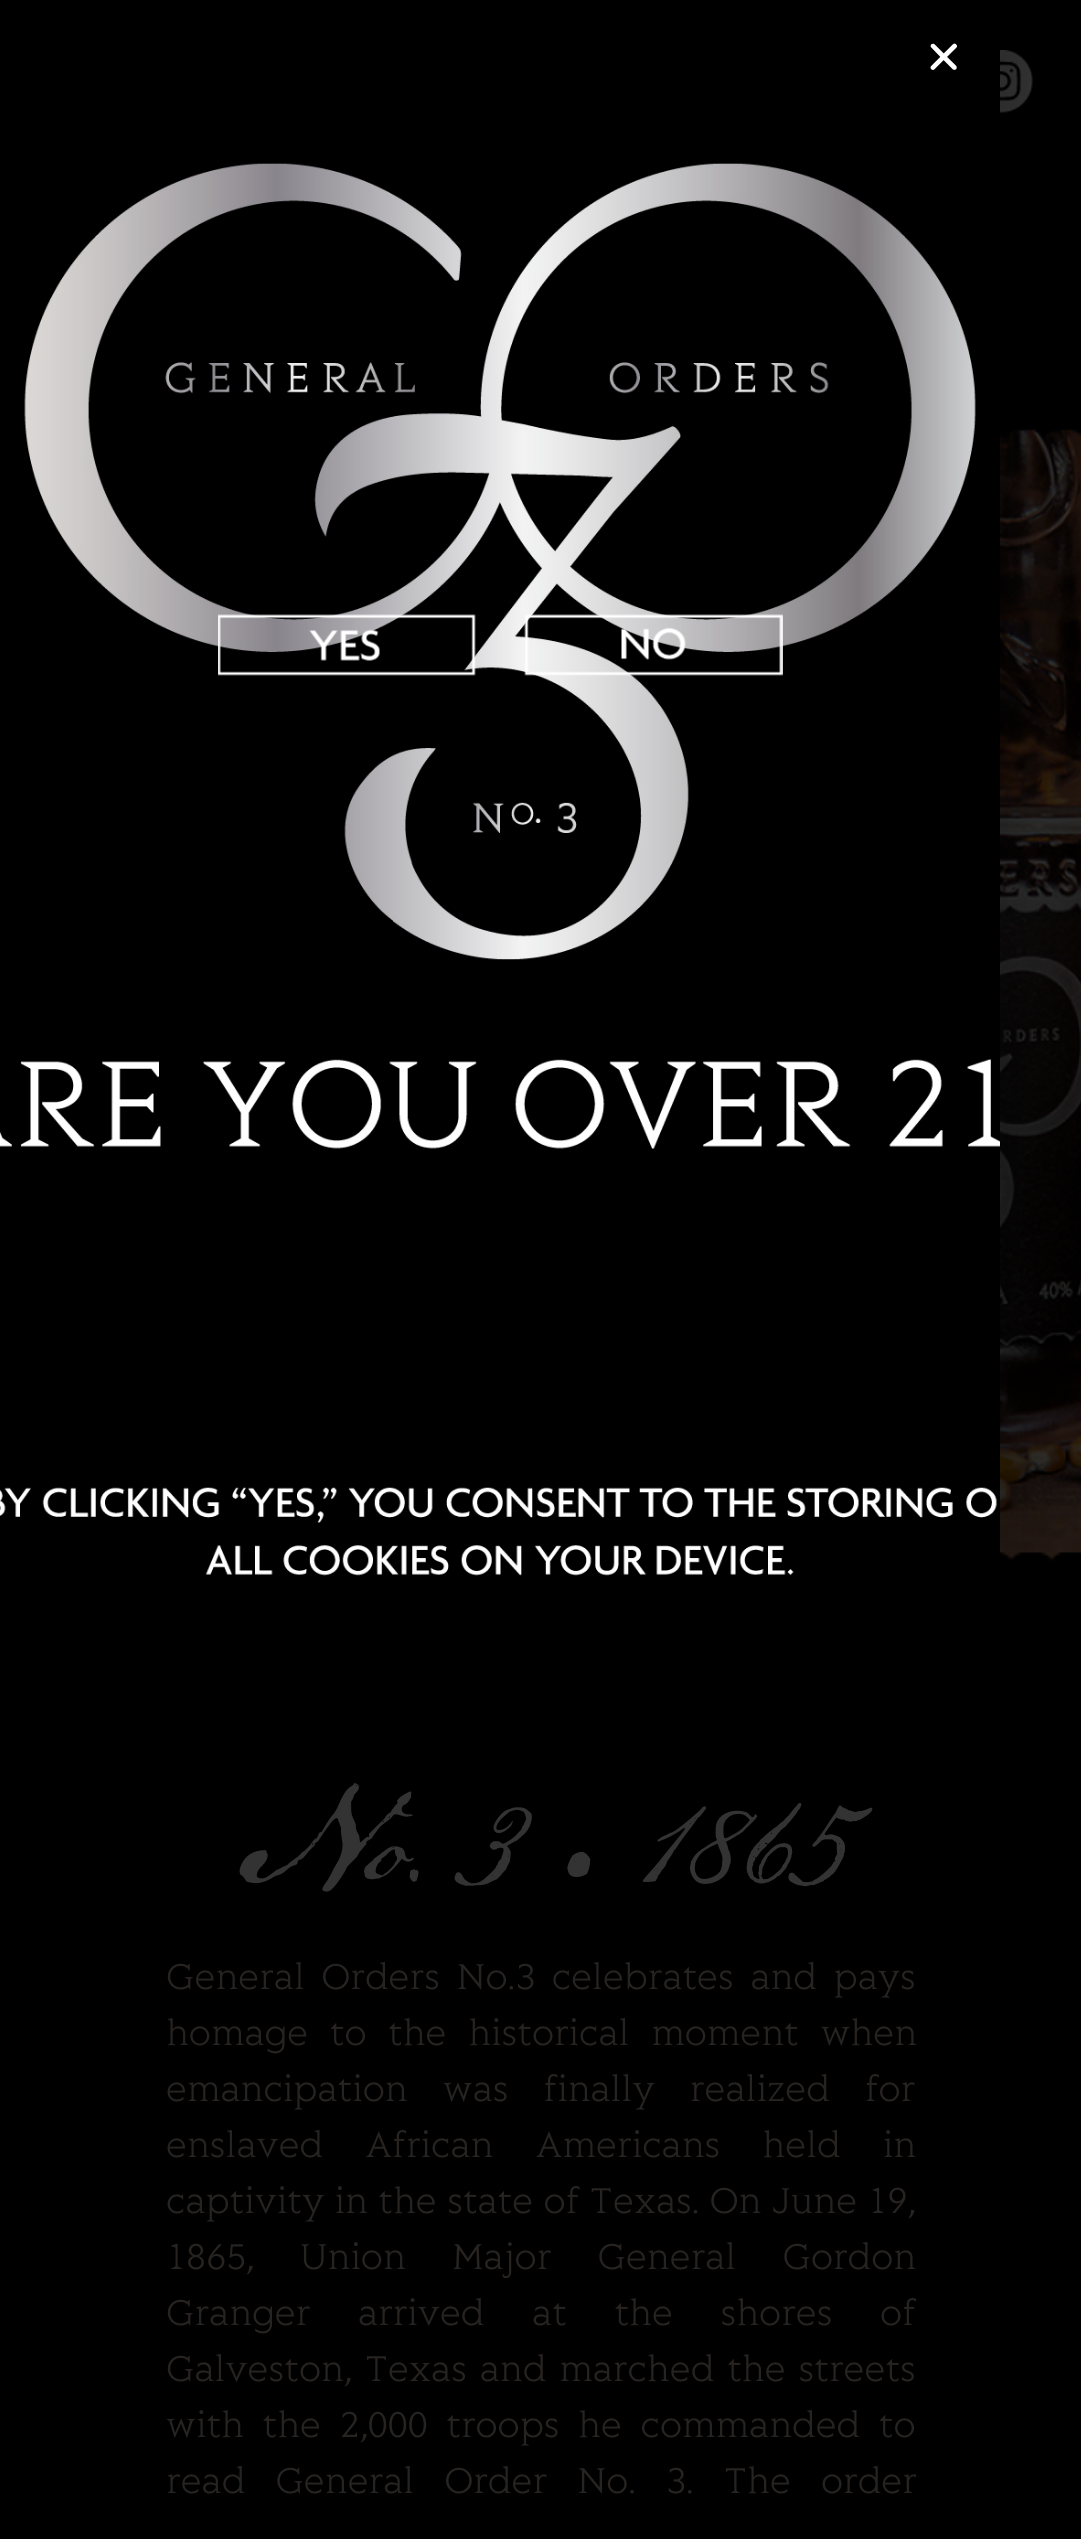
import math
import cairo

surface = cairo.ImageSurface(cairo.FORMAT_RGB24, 1081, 2539)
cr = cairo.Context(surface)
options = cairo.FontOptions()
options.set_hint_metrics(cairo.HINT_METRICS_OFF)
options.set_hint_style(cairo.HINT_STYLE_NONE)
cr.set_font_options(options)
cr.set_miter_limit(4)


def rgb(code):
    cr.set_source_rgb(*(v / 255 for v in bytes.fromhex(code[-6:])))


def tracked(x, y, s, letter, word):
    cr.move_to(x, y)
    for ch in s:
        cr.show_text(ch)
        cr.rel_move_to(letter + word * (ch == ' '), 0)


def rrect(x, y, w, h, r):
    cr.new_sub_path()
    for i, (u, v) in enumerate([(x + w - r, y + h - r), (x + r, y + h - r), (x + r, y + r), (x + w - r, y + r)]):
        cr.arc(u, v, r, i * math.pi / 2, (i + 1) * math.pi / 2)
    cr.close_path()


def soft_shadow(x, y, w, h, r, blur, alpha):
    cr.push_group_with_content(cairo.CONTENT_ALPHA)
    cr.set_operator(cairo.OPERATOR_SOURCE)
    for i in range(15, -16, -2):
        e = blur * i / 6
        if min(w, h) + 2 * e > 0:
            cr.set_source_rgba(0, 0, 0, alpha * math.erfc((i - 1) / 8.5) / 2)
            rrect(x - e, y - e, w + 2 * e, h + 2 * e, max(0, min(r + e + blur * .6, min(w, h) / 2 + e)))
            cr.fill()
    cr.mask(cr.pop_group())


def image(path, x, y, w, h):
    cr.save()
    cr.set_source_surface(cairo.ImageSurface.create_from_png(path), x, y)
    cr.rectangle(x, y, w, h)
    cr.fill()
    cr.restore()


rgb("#ffffff")
cr.paint()
image("img/7.png", 1000, 429, 81, 1132)
image("img/5.png", 0, 0, 1081, 439)
image("img/6.png", 1000, 50, 33, 63)
image("img/8.png", 0, 1552, 1081, 987)
rgb("#000000")
soft_shadow(-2, 13, 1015, 1745, 15, 29, 0.2)
rgb("#000000")
rrect(0, 0, 1000, 1730, 8)
cr.fill()
image("img/1.png", 0, 163, 1000, 1413)
image("img/2.png", 930, 43, 28, 27)
image("img/3.png", 218, 614, 258, 62)
image("img/4.png", 524, 614, 259, 62)
cr.select_font_face("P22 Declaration")
cr.set_font_size(137.5)
rgb("#333333")
cr.move_to(237, 1881)
cr.show_text("No. 3 • 1865")
cr.select_font_face("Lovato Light")
cr.set_font_size(40)
rgb("#262321")
tracked(166, 1989, "General Orders No.3 celebrates and pays", 0, 7.5)
tracked(166, 2045, "homage to the historical moment when", 0, 12.5)
tracked(166, 2101, "emancipation was finally realized for", 0, 26)
tracked(166, 2157, "enslaved African Americans held in", 0, 33)
tracked(166, 2213, "captivity in the state of Texas. On June 19,", 0, 1.25)
tracked(166, 2269, "1865, Union Major General Gordon", 0, 37)
tracked(166, 2325, "Granger arrived at the shores of", 0, 38.5)
tracked(166, 2381, "Galveston, Texas and marched the streets", 0, 3.75)
tracked(166, 2437, "with the 2,000 troops he commanded to", 0, 9.5)
tracked(166, 2493, "read General Order No. 3. The order", 0, 21)
surface.write_to_png("page.png")
